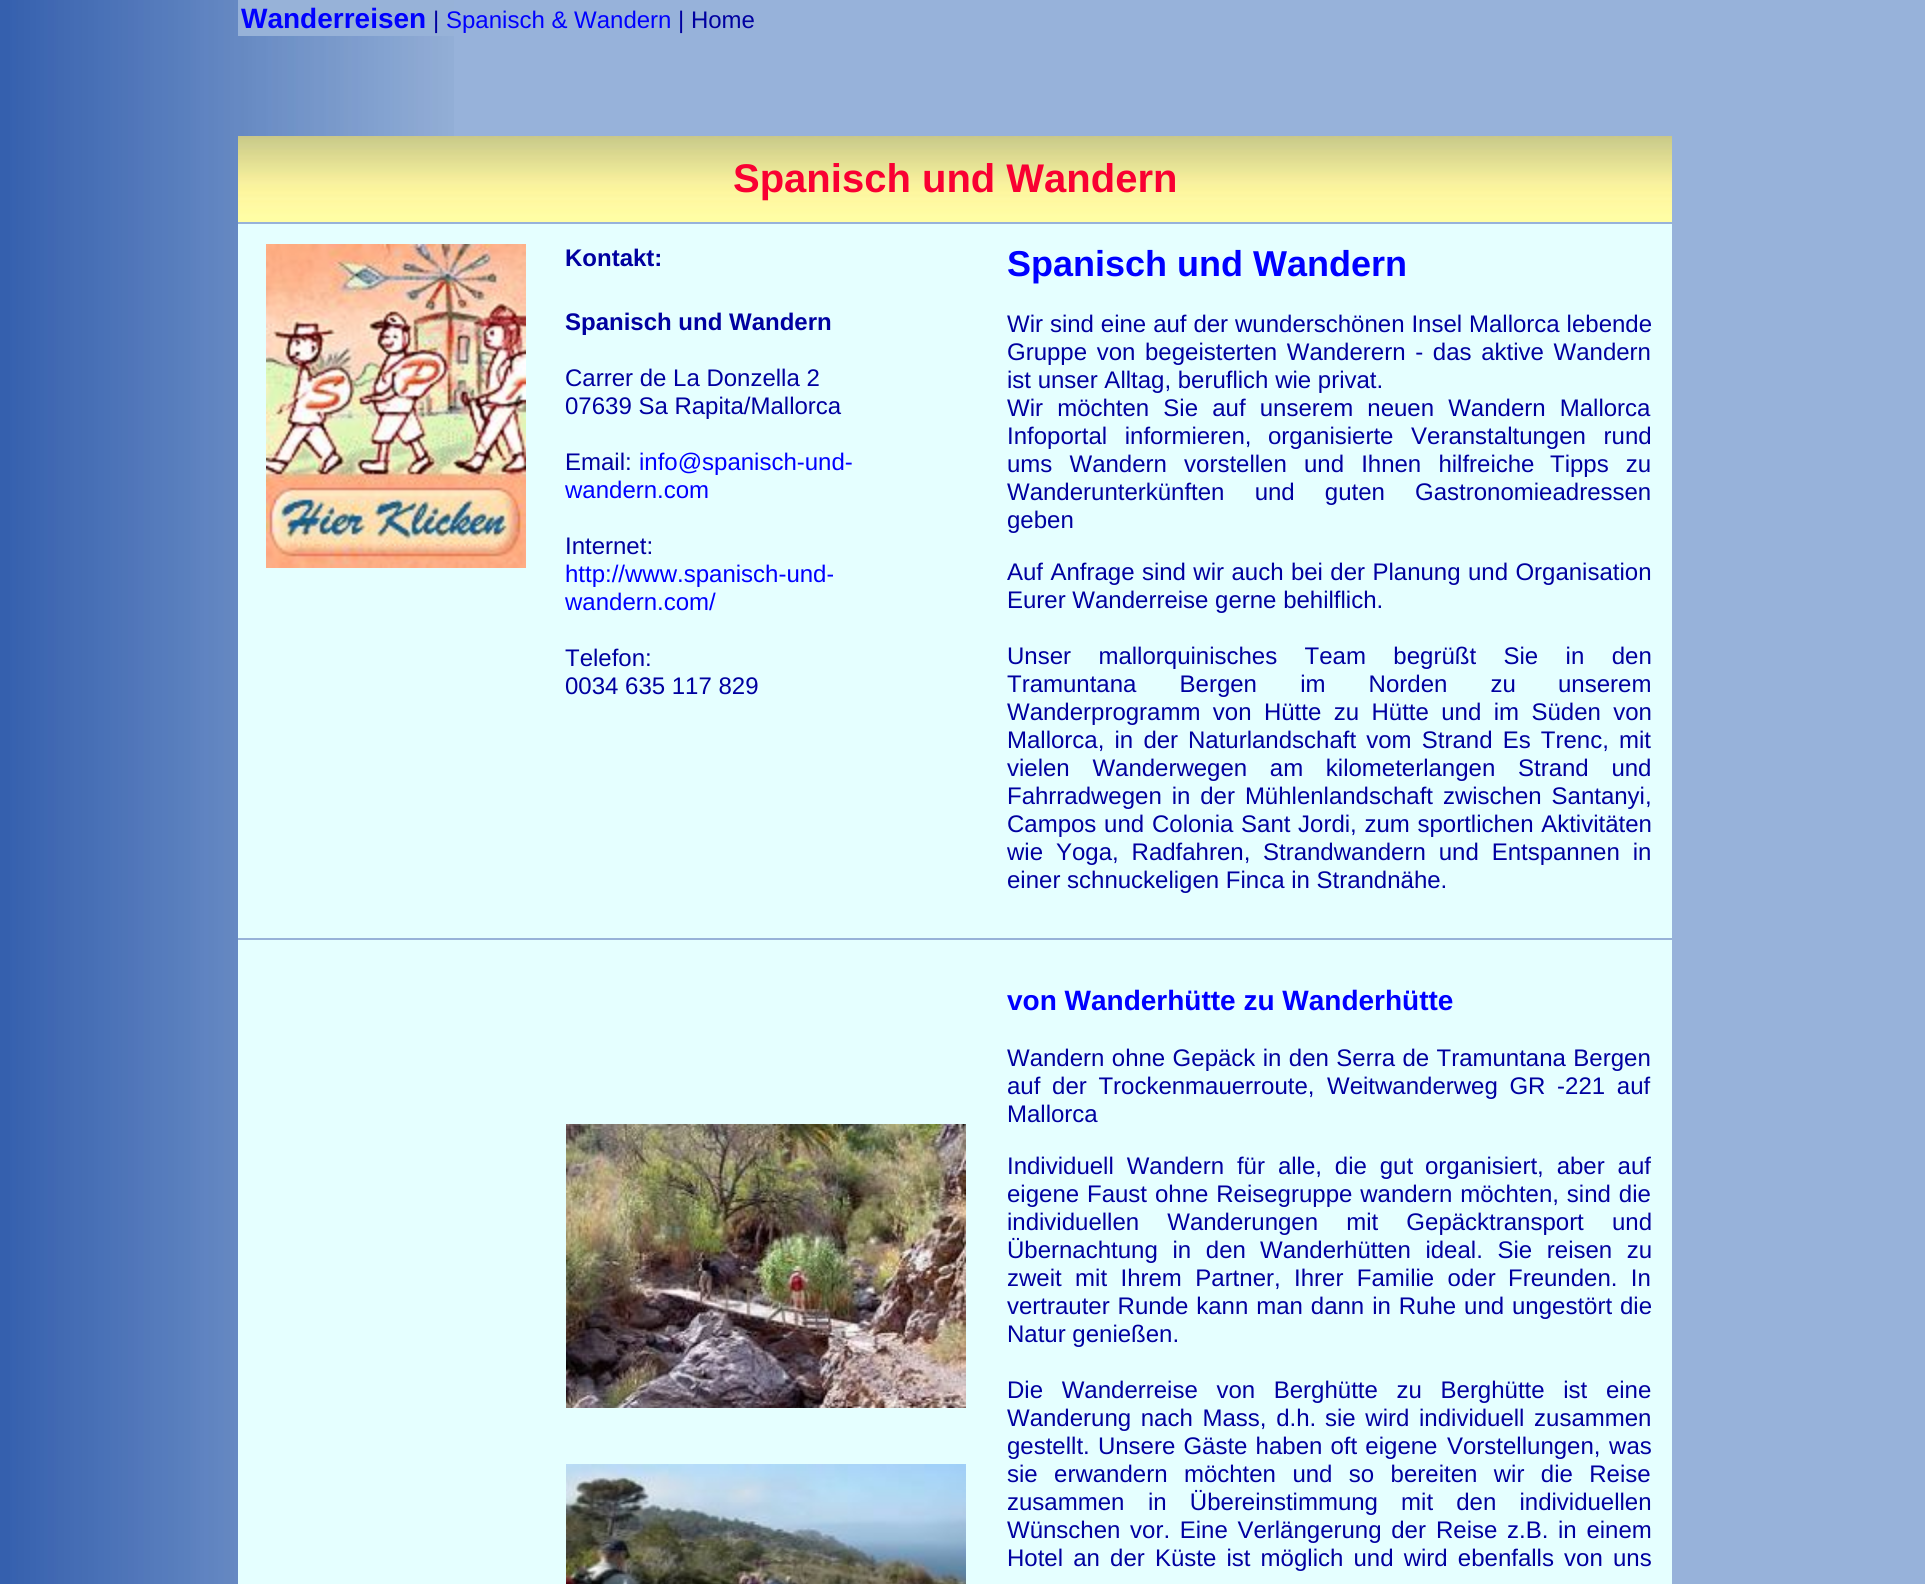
import math
import cairo

surface = cairo.ImageSurface(cairo.FORMAT_RGB24, 1925, 1584)
cr = cairo.Context(surface)
options = cairo.FontOptions()
options.set_hint_metrics(cairo.HINT_METRICS_OFF)
options.set_hint_style(cairo.HINT_STYLE_NONE)
cr.set_font_options(options)
cr.set_miter_limit(4)


def rgb(code):
    cr.set_source_rgb(*(v / 255 for v in bytes.fromhex(code[-6:])))


def tracked(x, y, s, letter, word):
    cr.move_to(x, y)
    for ch in s:
        cr.show_text(ch)
        cr.rel_move_to(letter + word * (ch == ' '), 0)


def image(path, x, y, w, h):
    cr.save()
    cr.set_source_surface(cairo.ImageSurface.create_from_png(path), x, y)
    cr.rectangle(x, y, w, h)
    cr.fill()
    cr.restore()


rgb("#97b2da")
cr.paint()
image("img/1.png", 0, 0, 454, 1584)
rgb("#97b2d8")
cr.rectangle(238, 0, 216, 36)
cr.fill()
rgb("#e5ffff")
cr.rectangle(238, 224, 1434, 1360)
cr.fill()
image("img/2.png", 238, 136, 1434, 86)
rgb("#97b2d8")
cr.rectangle(238, 222, 216, 2)
cr.fill()
cr.rectangle(238, 938, 1434, 2)
cr.fill()
image("img/3.png", 266, 244, 260, 324)
image("img/4.png", 566, 1124, 400, 284)
image("img/5.png", 566, 1464, 400, 120)
cr.select_font_face("Liberation Sans", cairo.FONT_SLANT_NORMAL, cairo.FONT_WEIGHT_BOLD)
cr.set_font_size(28)
rgb("#0000ff")
cr.move_to(241, 28)
cr.show_text("Wanderreisen")
cr.select_font_face("Liberation Sans")
cr.set_font_size(24)
rgb("#0000a0")
cr.move_to(433, 28)
cr.show_text("|")
rgb("#0000ff")
cr.move_to(446, 28)
cr.show_text("Spanisch & Wandern")
rgb("#0000a0")
cr.move_to(678, 28)
cr.show_text("| Home")
cr.select_font_face("Liberation Sans", cairo.FONT_SLANT_NORMAL, cairo.FONT_WEIGHT_BOLD)
cr.set_font_size(40)
rgb("#f90032")
cr.move_to(733, 192)
cr.show_text("Spanisch und Wandern")
cr.set_font_size(24)
rgb("#0000a0")
cr.move_to(565, 266)
cr.show_text("Kontakt:")
cr.move_to(565, 330)
cr.show_text("Spanisch und Wandern")
cr.select_font_face("Liberation Sans")
for x, y, s in [
    (565, 386, "Carrer de La Donzella 2"),
    (565, 414, "07639 Sa Rapita/Mallorca"),
    (565, 470, "Email:"),
]:
    cr.move_to(x, y)
    cr.show_text(s)
rgb("#0000ff")
cr.move_to(639, 470)
cr.show_text("info@spanisch-und-")
cr.move_to(565, 498)
cr.show_text("wandern.com")
rgb("#0000a0")
cr.move_to(565, 554)
cr.show_text("Internet:")
rgb("#0000ff")
cr.move_to(565, 582)
cr.show_text("http://www.spanisch-und-")
cr.move_to(565, 610)
cr.show_text("wandern.com/")
rgb("#0000a0")
cr.move_to(565, 666)
cr.show_text("Telefon:")
cr.move_to(565, 694)
cr.show_text("0034 635 117 829")
cr.select_font_face("Liberation Sans", cairo.FONT_SLANT_NORMAL, cairo.FONT_WEIGHT_BOLD)
cr.set_font_size(36)
rgb("#0000ff")
cr.move_to(1007, 276)
cr.show_text("Spanisch und Wandern")
cr.select_font_face("Liberation Sans")
cr.set_font_size(24)
rgb("#0000a0")
tracked(1007, 332, "Wir sind eine auf der wunderschönen Insel Mallorca lebende", 0, 0.25)
tracked(1007, 360, "Gruppe von", 0, 3)
tracked(1145, 360, "begeisterten Wanderern - das aktive Wandern", 0, 3)
cr.move_to(1007, 388)
cr.show_text("ist unser Alltag, beruflich wie privat.")
tracked(1007, 416, "Wir möchten Sie auf unserem neuen Wandern Mallorca", 0, 7.5)
tracked(1007, 444, "Infoportal informieren,", 0, 11)
tracked(1268, 444, "organisierte Veranstaltungen rund", 0, 11)
tracked(1007, 472, "ums Wandern vorstellen und Ihnen hilfreiche", 0, 10.5)
tracked(1550, 472, "Tipps zu", 0, 10.5)
tracked(1007, 500, "Wanderunterkünften und guten Gastronomieadressen", 0, 23.5)
cr.move_to(1007, 528)
cr.show_text("geben")
tracked(1007, 580, "Auf Anfrage sind wir auch bei der Planung und Organisation", 0, 0.75)
cr.move_to(1007, 608)
cr.show_text("Eurer Wanderreise gerne behilflich.")
tracked(1007, 664, "Unser mallorquinisches Team begrüßt Sie in den", 0, 20.75)
tracked(1007, 692, "Tramuntana Bergen im Norden zu", 0, 36.5)
cr.move_to(1558, 692)
cr.show_text("unserem")
tracked(1007, 720, "Wanderprogramm von Hütte zu Hütte und im Süden von", 0, 5.75)
tracked(1007, 748, "Mallorca, in der", 0, 3.5)
tracked(1188, 748, "Naturlandschaft vom Strand Es Trenc, mit", 0, 3.5)
tracked(1007, 776, "vielen Wanderwegen am kilometerlangen", 0, 16)
tracked(1518, 776, "Strand und", 0, 16)
tracked(1007, 804, "Fahrradwegen in der Mühlenlandschaft zwischen Santanyi,", 0, 3.25)
tracked(1007, 832, "Campos und", 0, 1)
tracked(1152, 832, "Colonia Sant Jordi, zum sportlichen Aktivitäten", 0, 1)
tracked(1007, 860, "wie Yoga, Radfahren,", 0, 6.25)
tracked(1263, 860, "Strandwandern und Entspannen in", 0, 6.25)
cr.move_to(1007, 888)
cr.show_text("einer schnuckeligen Finca in Strandnähe.")
cr.select_font_face("Liberation Sans", cairo.FONT_SLANT_NORMAL, cairo.FONT_WEIGHT_BOLD)
cr.set_font_size(28)
rgb("#0000ff")
cr.move_to(1007, 1010)
cr.show_text("von Wanderhütte zu Wanderhütte")
cr.select_font_face("Liberation Sans")
cr.set_font_size(24)
rgb("#0000a0")
tracked(1007, 1066, "Wandern ohne Gepäck in den Serra de Tramuntana Bergen", 0, 0.75)
tracked(1007, 1094, "auf der Trockenmauerroute,", 0, 5)
tracked(1327, 1094, "Weitwanderweg GR -221 auf", 0, 5)
cr.move_to(1007, 1122)
cr.show_text("Mallorca")
tracked(1007, 1174, "Individuell Wandern für alle, die gut", 0, 6.25)
tracked(1425, 1174, "organisiert, aber auf", 0, 6.25)
tracked(1007, 1202, "eigene Faust ohne Reisegruppe wandern möchten, sind die", 0, 1.25)
tracked(1007, 1230, "individuellen Wanderungen mit Gepäcktransport und", 0, 21.5)
tracked(1007, 1258, "Übernachtung in den", 0, 8)
tracked(1260, 1258, "Wanderhütten ideal. Sie reisen zu", 0, 8)
tracked(1007, 1286, "zweit mit Ihrem Partner, Ihrer Familie oder", 0, 6.75)
tracked(1508, 1286, "Freunden. In", 0, 6.75)
tracked(1007, 1314, "vertrauter Runde kann man dann in Ruhe und ungestört die", 0, 1.25)
cr.move_to(1007, 1342)
cr.show_text("Natur genießen.")
tracked(1007, 1398, "Die Wanderreise von Berghütte zu Berghütte ist eine", 0, 12)
tracked(1007, 1426, "Wanderung nach Mass, d.h.", 0, 3)
tracked(1325, 1426, "sie wird individuell zusammen", 0, 3)
tracked(1007, 1454, "gestellt. Unsere Gäste haben oft eigene", 0, 1.5)
tracked(1447, 1454, "Vorstellungen, was", 0, 2)
tracked(1007, 1482, "sie erwandern möchten und so bereiten wir die Reise", 0, 9.75)
cr.move_to(1007, 1510)
cr.show_text("zusammen")
tracked(1148, 1510, "in Übereinstimmung mit den individuellen", 0, 16.5)
tracked(1007, 1538, "Wünschen vor. Eine Verlängerung der", 0, 3)
tracked(1436, 1538, "Reise z.B. in einem", 0, 3)
tracked(1007, 1566, "Hotel an der Küste ist möglich und wird ebenfalls von uns", 0, 3.5)
surface.write_to_png("page.png")
